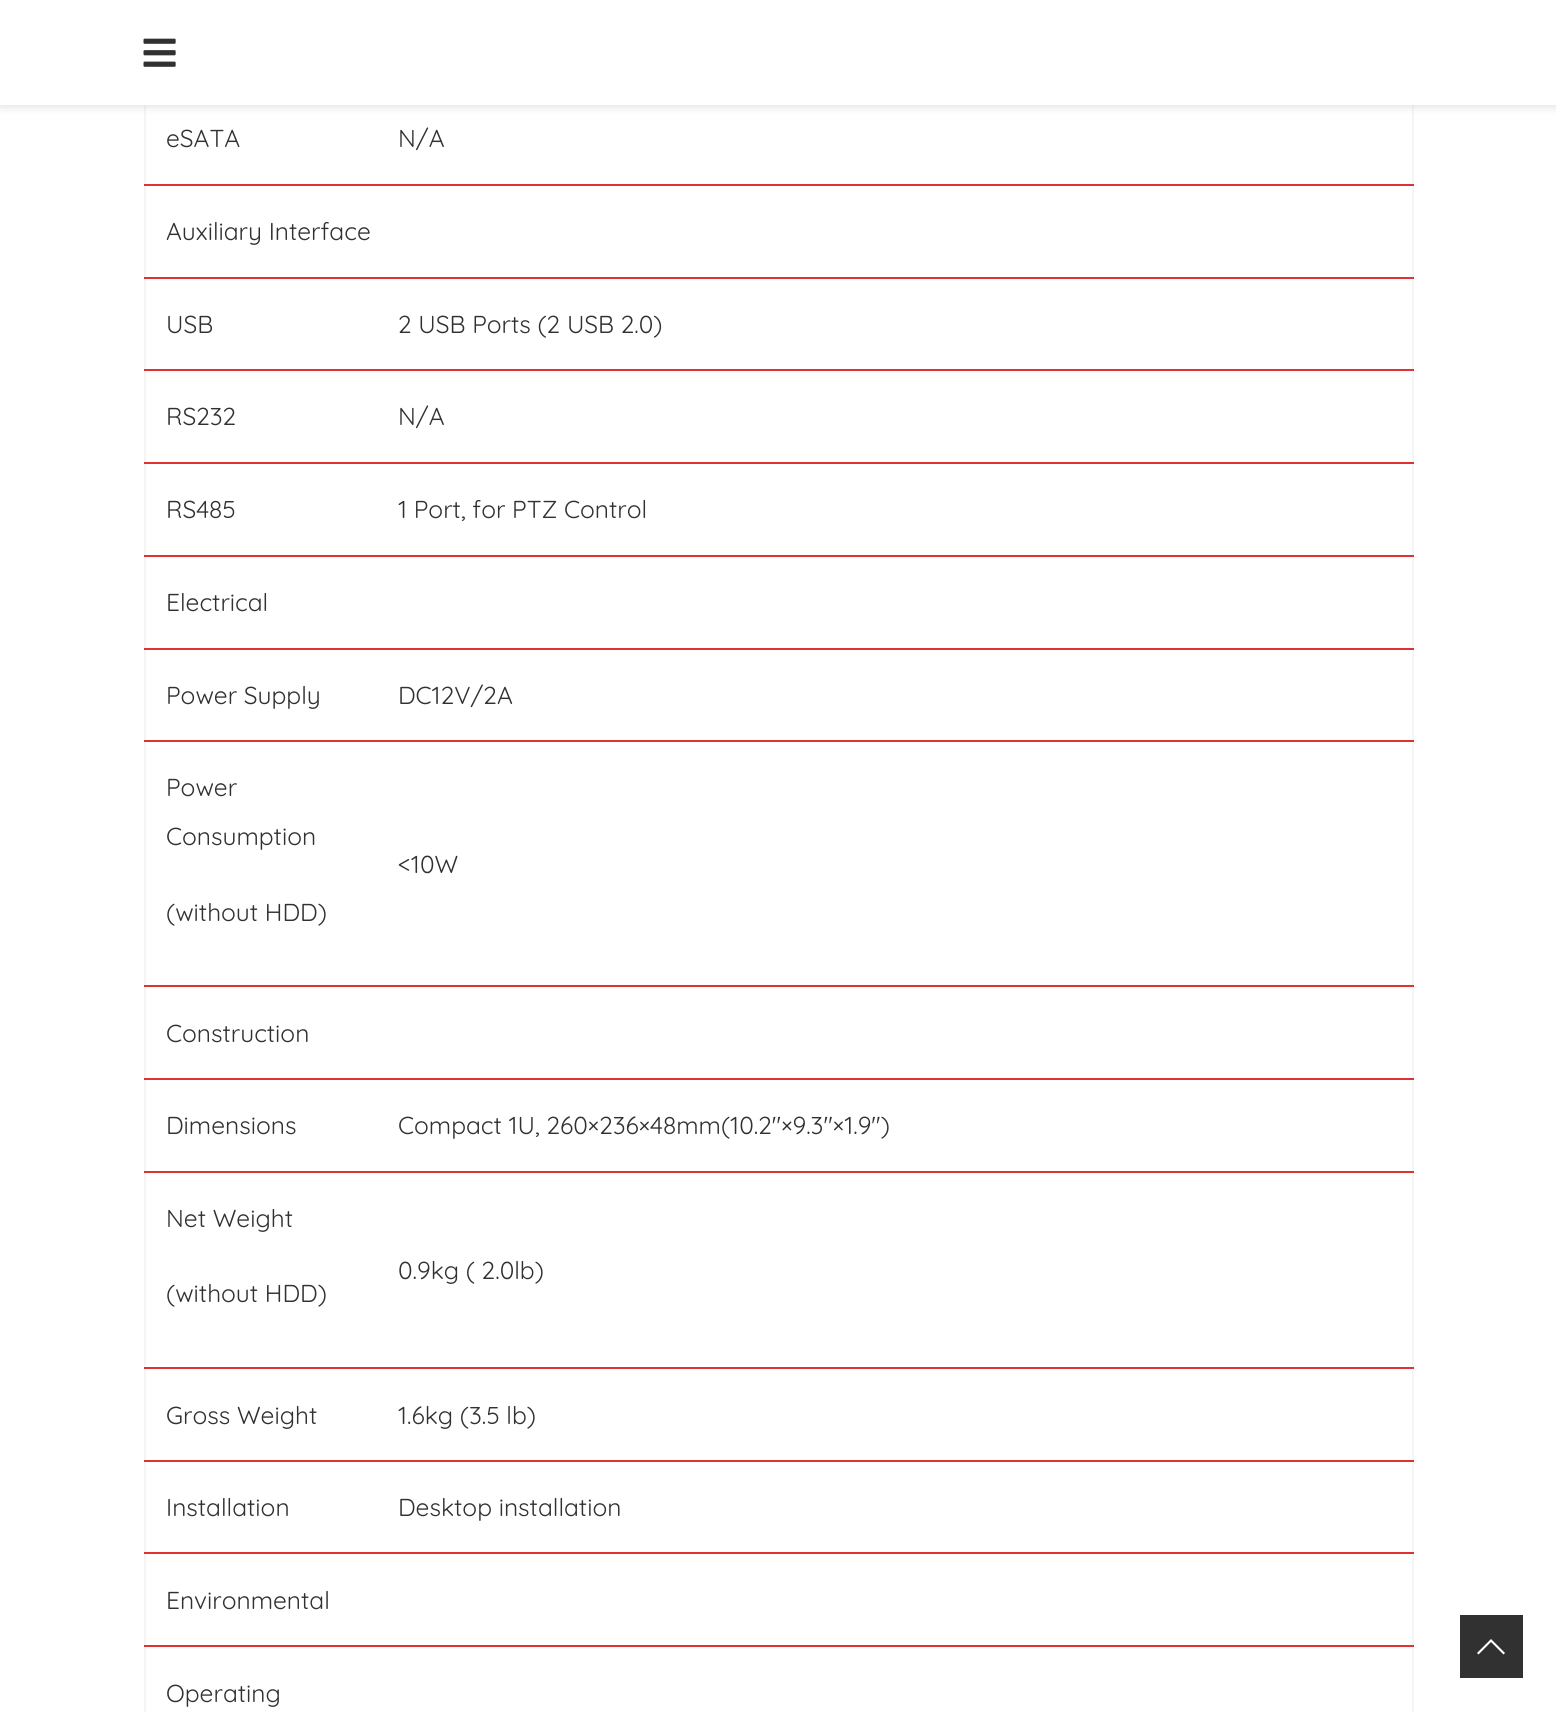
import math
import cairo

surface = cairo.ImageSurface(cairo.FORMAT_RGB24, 1556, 1712)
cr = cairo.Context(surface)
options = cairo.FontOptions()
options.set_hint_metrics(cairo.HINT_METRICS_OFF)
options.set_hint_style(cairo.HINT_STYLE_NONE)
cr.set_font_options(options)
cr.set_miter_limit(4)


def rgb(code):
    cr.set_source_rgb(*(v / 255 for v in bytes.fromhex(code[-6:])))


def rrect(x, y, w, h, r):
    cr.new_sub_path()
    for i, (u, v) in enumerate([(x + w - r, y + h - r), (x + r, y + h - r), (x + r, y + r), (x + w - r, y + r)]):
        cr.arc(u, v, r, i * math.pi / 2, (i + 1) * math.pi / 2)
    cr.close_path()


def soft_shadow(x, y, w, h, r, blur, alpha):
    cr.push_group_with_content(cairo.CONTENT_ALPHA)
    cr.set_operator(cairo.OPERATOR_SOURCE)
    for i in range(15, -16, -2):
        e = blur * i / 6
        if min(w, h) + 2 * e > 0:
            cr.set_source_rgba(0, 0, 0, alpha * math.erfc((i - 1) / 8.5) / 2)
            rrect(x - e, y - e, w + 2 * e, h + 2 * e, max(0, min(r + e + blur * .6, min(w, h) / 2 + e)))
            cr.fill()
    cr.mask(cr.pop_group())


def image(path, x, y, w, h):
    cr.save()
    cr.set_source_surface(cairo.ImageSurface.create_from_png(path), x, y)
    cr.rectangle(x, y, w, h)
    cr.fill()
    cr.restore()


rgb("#ffffff")
cr.paint()
rgb("#f5f5f5")
cr.rectangle(1412, 105, 2, 1607)
cr.fill()
cr.rectangle(144, 105, 2, 1607)
cr.fill()
rgb("#bebebe")
soft_shadow(0, 2, 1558, 105, 0, 4.5, 0.46)
rgb("#ffffff")
cr.rectangle(0, 0, 1556, 105)
cr.fill()
image("img/1.png", 143, 38, 33, 29)
for x, y, w, h, color in [
    (144, 184, 1270, 2, "#dd3333"),
    (144, 277, 1270, 2, "#dd3333"),
    (144, 369, 1270, 2, "#dd3333"),
    (144, 462, 1270, 2, "#dd3333"),
    (144, 555, 1270, 2, "#dd3333"),
    (144, 648, 1270, 2, "#dd3333"),
    (144, 740, 1270, 2, "#dd3333"),
    (144, 985, 1270, 2, "#dd3333"),
    (144, 1078, 1270, 2, "#dd3333"),
    (144, 1171, 1270, 2, "#dd3333"),
    (144, 1367, 1270, 2, "#dd3333"),
    (144, 1460, 1270, 2, "#dd3333"),
    (144, 1552, 1270, 2, "#dd3333"),
    (144, 1645, 1270, 2, "#dd3333"),
    (1460, 1615, 63, 63, "#313131"),
]:
    rgb(color)
    cr.rectangle(x, y, w, h)
    cr.fill()
rgb("#ffffff")
cr.new_path()
cr.move_to(1491, 1639)
cr.line_to(1477, 1653)
cr.line_to(1478.5, 1654.5)
cr.line_to(1491, 1642)
cr.line_to(1503.5, 1654.5)
cr.line_to(1505, 1653)
cr.close_path()
cr.fill()
cr.select_font_face("Quicksand")
cr.set_font_size(24.5)
rgb("#313131")
for x, y, s in [
    (166, 147, "eSATA"),
    (398, 147, "N/A"),
    (166, 240, "Auxiliary Interface"),
    (166, 333, "USB"),
    (398, 333, "2 USB Ports (2 USB 2.0)"),
    (166, 425, "RS232"),
    (398, 425, "N/A"),
    (166, 518, "RS485"),
    (398, 518, "1 Port, for PTZ Control"),
    (166, 611, "Electrical"),
    (166, 704, "Power Supply"),
    (398, 704, "DC12V/2A"),
    (166, 796, "Power"),
    (166, 845, "Consumption"),
    (166, 921, "(without HDD)"),
    (398, 873, "<10W"),
    (166, 1042, "Construction"),
    (166, 1134, "Dimensions"),
    (398, 1134, "Compact 1U, 260×236×48mm(10.2″×9.3″×1.9″)"),
    (166, 1227, "Net Weight"),
    (166, 1302, "(without HDD)"),
    (398, 1279, "0.9kg ( 2.0lb)"),
    (166, 1424, "Gross Weight"),
    (398, 1424, "1.6kg (3.5 lb)"),
    (166, 1516, "Installation"),
    (398, 1516, "Desktop installation"),
    (166, 1609, "Environmental"),
    (166, 1702, "Operating"),
]:
    cr.move_to(x, y)
    cr.show_text(s)
surface.write_to_png("page.png")
